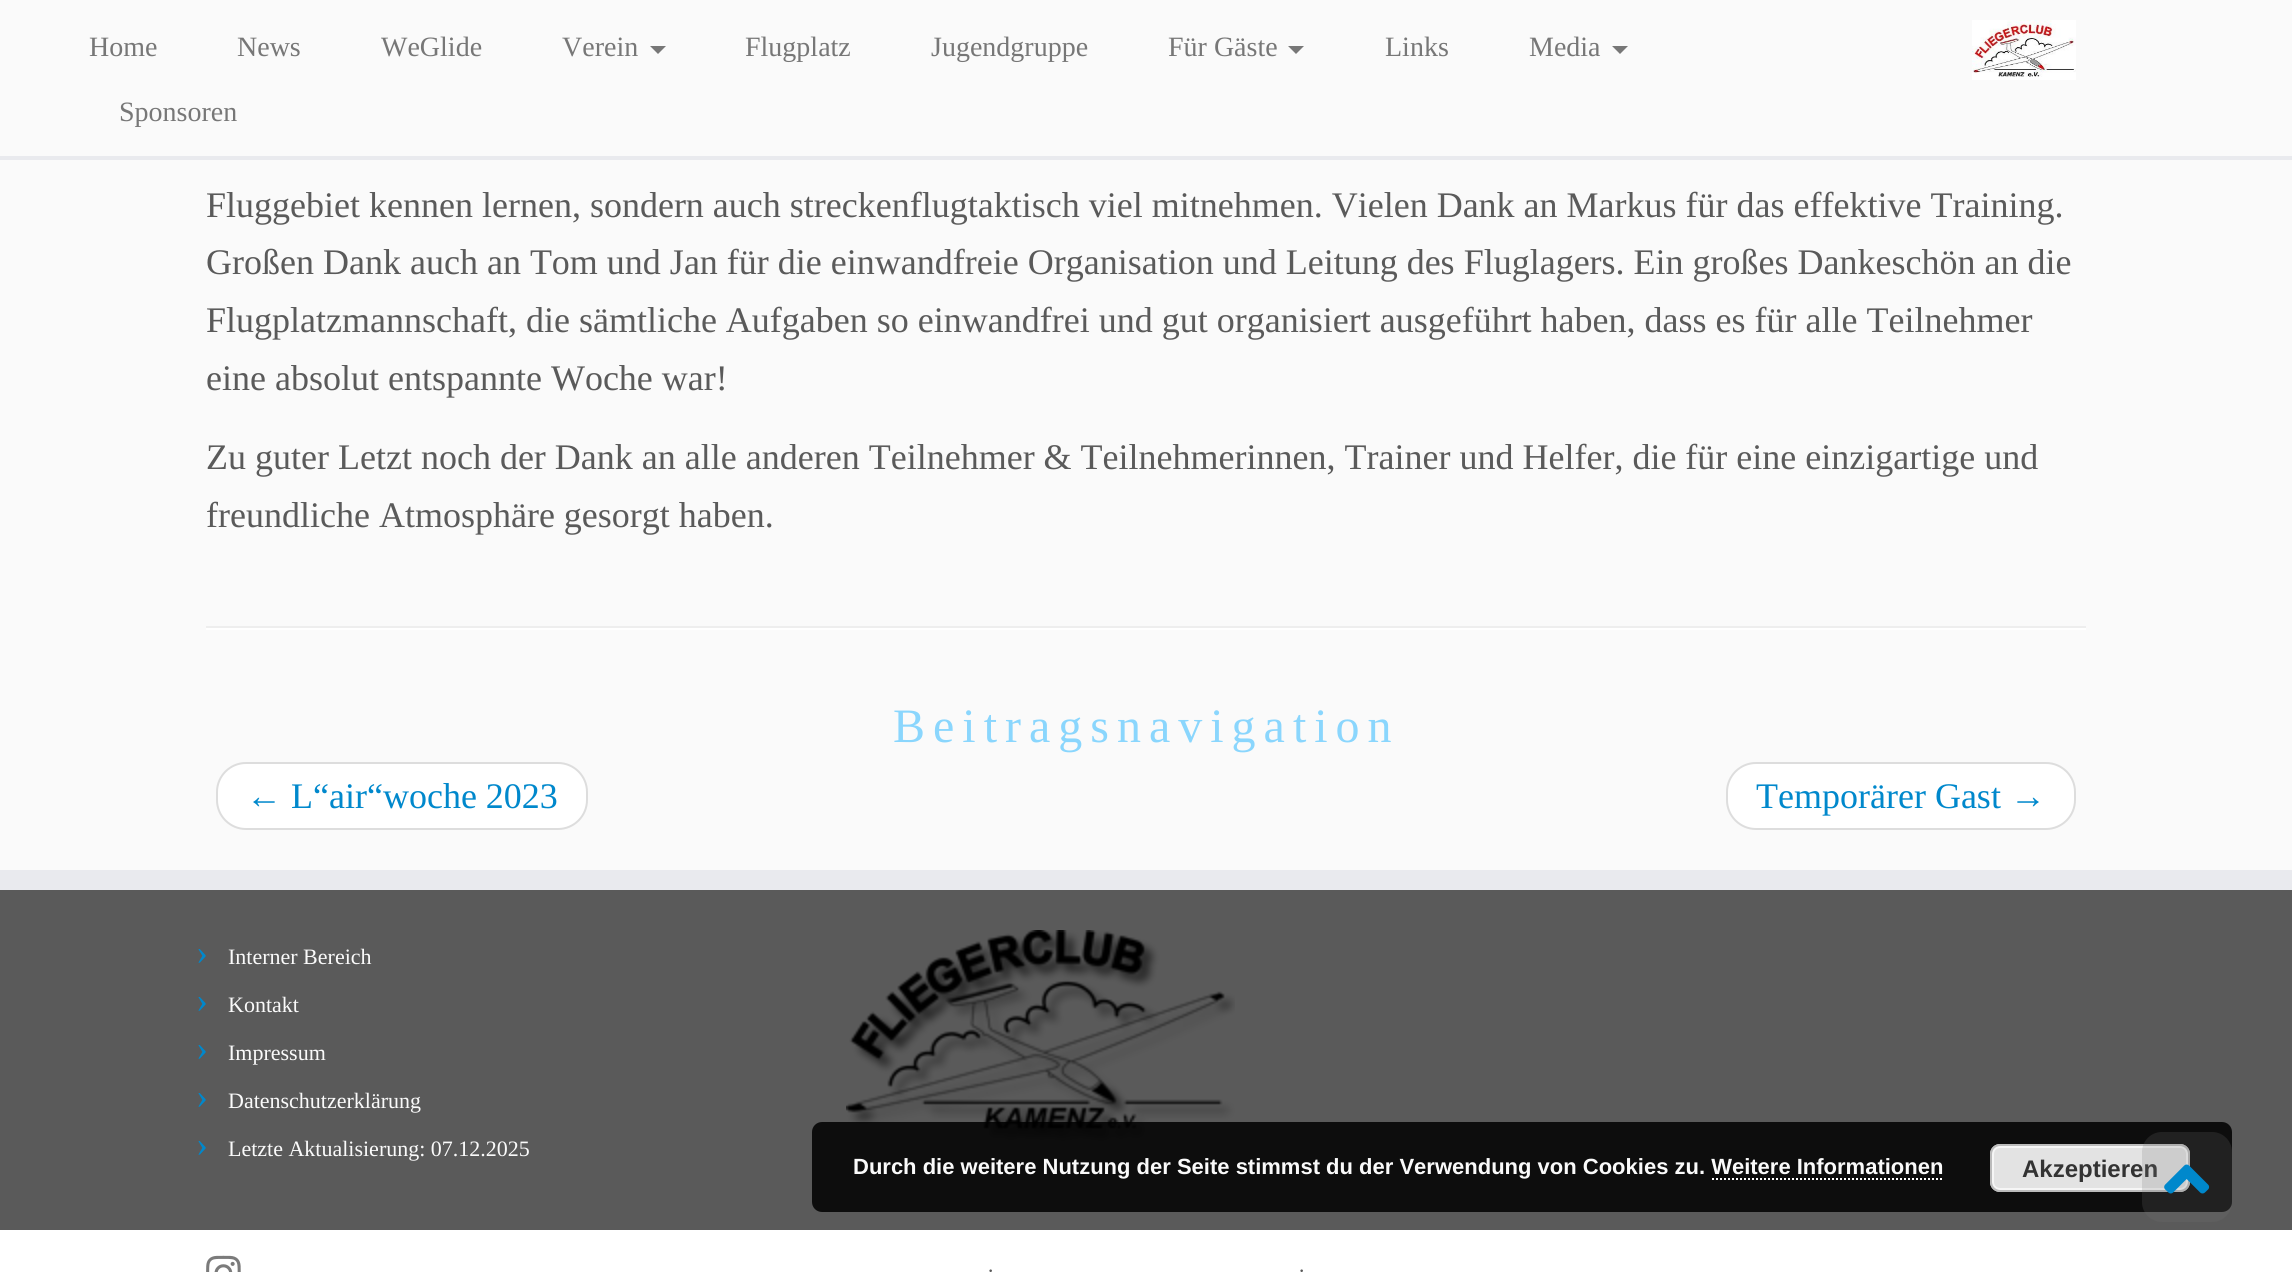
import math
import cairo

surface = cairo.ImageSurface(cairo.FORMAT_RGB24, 2292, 1272)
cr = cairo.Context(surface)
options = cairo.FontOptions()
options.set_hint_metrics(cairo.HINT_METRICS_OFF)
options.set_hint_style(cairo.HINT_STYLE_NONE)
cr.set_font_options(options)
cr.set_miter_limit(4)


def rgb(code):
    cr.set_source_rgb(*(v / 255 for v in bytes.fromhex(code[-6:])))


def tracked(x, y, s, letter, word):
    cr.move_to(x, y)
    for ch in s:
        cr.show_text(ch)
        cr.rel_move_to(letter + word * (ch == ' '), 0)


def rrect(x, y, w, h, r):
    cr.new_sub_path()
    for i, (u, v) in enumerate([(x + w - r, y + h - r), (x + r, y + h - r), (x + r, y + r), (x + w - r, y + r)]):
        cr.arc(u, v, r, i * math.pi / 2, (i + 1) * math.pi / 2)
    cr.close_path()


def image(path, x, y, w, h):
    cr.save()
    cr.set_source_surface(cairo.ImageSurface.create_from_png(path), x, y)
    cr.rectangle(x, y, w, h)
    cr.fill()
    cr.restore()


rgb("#fafafa")
cr.paint()
rgb("#e9eaee")
cr.rectangle(0, 156, 2292, 4)
cr.fill()
rgb("#777777")
cr.new_path()
cr.move_to(650, 46)
cr.line_to(666, 46)
cr.line_to(658, 54)
cr.close_path()
cr.fill()
cr.new_path()
cr.move_to(1288, 46)
cr.line_to(1304, 46)
cr.line_to(1296, 54)
cr.close_path()
cr.fill()
cr.new_path()
cr.move_to(1612, 46)
cr.line_to(1628, 46)
cr.line_to(1620, 54)
cr.close_path()
cr.fill()
image("img/1.png", 1972, 20, 104, 60)
rgb("#eeeeee")
cr.rectangle(206, 626, 1880, 2)
cr.fill()
rgb("#ffffff")
cr.rectangle(206, 628, 1880, 2)
cr.fill()
rrect(217, 763, 370, 66, 29)
cr.fill_preserve()
rgb("#dddddd")
cr.stroke()
rgb("#ffffff")
rrect(1727, 763, 348, 66, 29)
cr.fill_preserve()
rgb("#dddddd")
cr.stroke()
rgb("#5a5a5a")
cr.rectangle(0, 890, 2292, 340)
cr.fill()
rgb("#e9eaee")
cr.rectangle(0, 870, 2292, 20)
cr.fill()
image("img/2.png", 846, 930, 389, 212)
rgb("#ffffff")
cr.rectangle(0, 1230, 2292, 42)
cr.fill()
image("img/3.png", 206, 1255, 35, 17)
cr.set_source_rgba(0, 0, 0, 0.85)
rrect(812, 1122, 1420, 90, 10)
cr.fill()
rgb("#e3e3e3")
rrect(1990, 1144, 200, 48, 10)
cr.fill()
rrect(1993, 1147, 194, 42, 7)
rgb("#f6f6f6")
cr.stroke()
rrect(1991, 1145, 198, 46, 9)
rgb("#bbbbbb")
cr.stroke()
cr.select_font_face("Liberation Serif")
cr.set_font_size(28)
rgb("#777777")
for x, y, s in [
    (89, 56, "Home"),
    (237, 56, "News"),
    (381, 56, "WeGlide"),
    (562, 56, "Verein"),
    (745, 56, "Flugplatz"),
    (931, 56, "Jugendgruppe"),
    (1168, 56, "Für Gäste"),
    (1385, 56, "Links"),
    (1529, 56, "Media"),
    (119, 121, "Sponsoren"),
]:
    cr.move_to(x, y)
    cr.show_text(s)
cr.set_font_size(36)
rgb("#5a5a5a")
for x, y, s in [
    (206, 217, "Fluggebiet kennen lernen, sondern auch streckenflugtaktisch viel mitnehmen. Vielen Dank an Markus für das effektive Training."),
    (206, 274, "Großen Dank auch an Tom und Jan für die einwandfreie Organisation und Leitung des Fluglagers. Ein großes Dankeschön an die"),
    (206, 332, "Flugplatzmannschaft, die sämtliche Aufgaben so einwandfrei und gut organisiert ausgeführt haben, dass es für alle Teilnehmer"),
    (206, 390, "eine absolut entspannte Woche war!"),
    (206, 469, "Zu guter Letzt noch der Dank an alle anderen Teilnehmer & Teilnehmerinnen, Trainer und Helfer, die für eine einzigartige und"),
    (206, 527, "freundliche Atmosphäre gesorgt haben."),
]:
    cr.move_to(x, y)
    cr.show_text(s)
cr.set_font_size(48)
rgb("#8ad6fd")
tracked(893, 742, "Beitragsnavigation", 8, 0)
cr.set_font_size(36)
rgb("#0088cc")
for x, y, s in [
    (246, 808, "← L“air“woche 2023"),
    (1756, 808, "Temporärer Gast →"),
    (196, 964, "›"),
]:
    cr.move_to(x, y)
    cr.show_text(s)
cr.set_font_size(22)
rgb("#fafafa")
cr.move_to(228, 964)
cr.show_text("Interner Bereich")
cr.set_font_size(36)
rgb("#0088cc")
cr.move_to(196, 1012)
cr.show_text("›")
cr.set_font_size(22)
rgb("#fafafa")
cr.move_to(228, 1012)
cr.show_text("Kontakt")
cr.set_font_size(36)
rgb("#0088cc")
cr.move_to(196, 1060)
cr.show_text("›")
cr.set_font_size(22)
rgb("#fafafa")
cr.move_to(228, 1060)
cr.show_text("Impressum")
cr.set_font_size(36)
rgb("#0088cc")
cr.move_to(196, 1108)
cr.show_text("›")
cr.set_font_size(22)
rgb("#fafafa")
cr.move_to(228, 1108)
cr.show_text("Datenschutzerklärung")
cr.set_font_size(36)
rgb("#0088cc")
cr.move_to(196, 1156)
cr.show_text("›")
cr.set_font_size(22)
rgb("#fafafa")
cr.move_to(228, 1156)
cr.show_text("Letzte Aktualisierung: 07.12.2025")
rgb("#5a5a5a")
cr.move_to(987, 1278)
cr.show_text("·")
cr.move_to(1298, 1278)
cr.show_text("·")
cr.select_font_face("Liberation Sans", cairo.FONT_SLANT_NORMAL, cairo.FONT_WEIGHT_BOLD)
rgb("#fafafa")
cr.move_to(853, 1174)
cr.show_text("Durch die weitere Nutzung der Seite stimmst du der Verwendung von Cookies zu. Weitere Informationen")
cr.set_font_size(24)
rgb("#333333")
cr.move_to(2022, 1177)
cr.show_text("Akzeptieren")
cr.set_source_rgba(0.467, 0.467, 0.467, 0.2)
rrect(2142, 1132, 90, 90, 20)
cr.fill()
image("img/4.png", 2164, 1164, 46, 30)
cr.new_path()
cr.move_to(1712, 1179)
cr.line_to(1944, 1179)
rgb("#ffffff")
cr.set_dash([2, 2])
cr.stroke()
surface.write_to_png("page.png")
